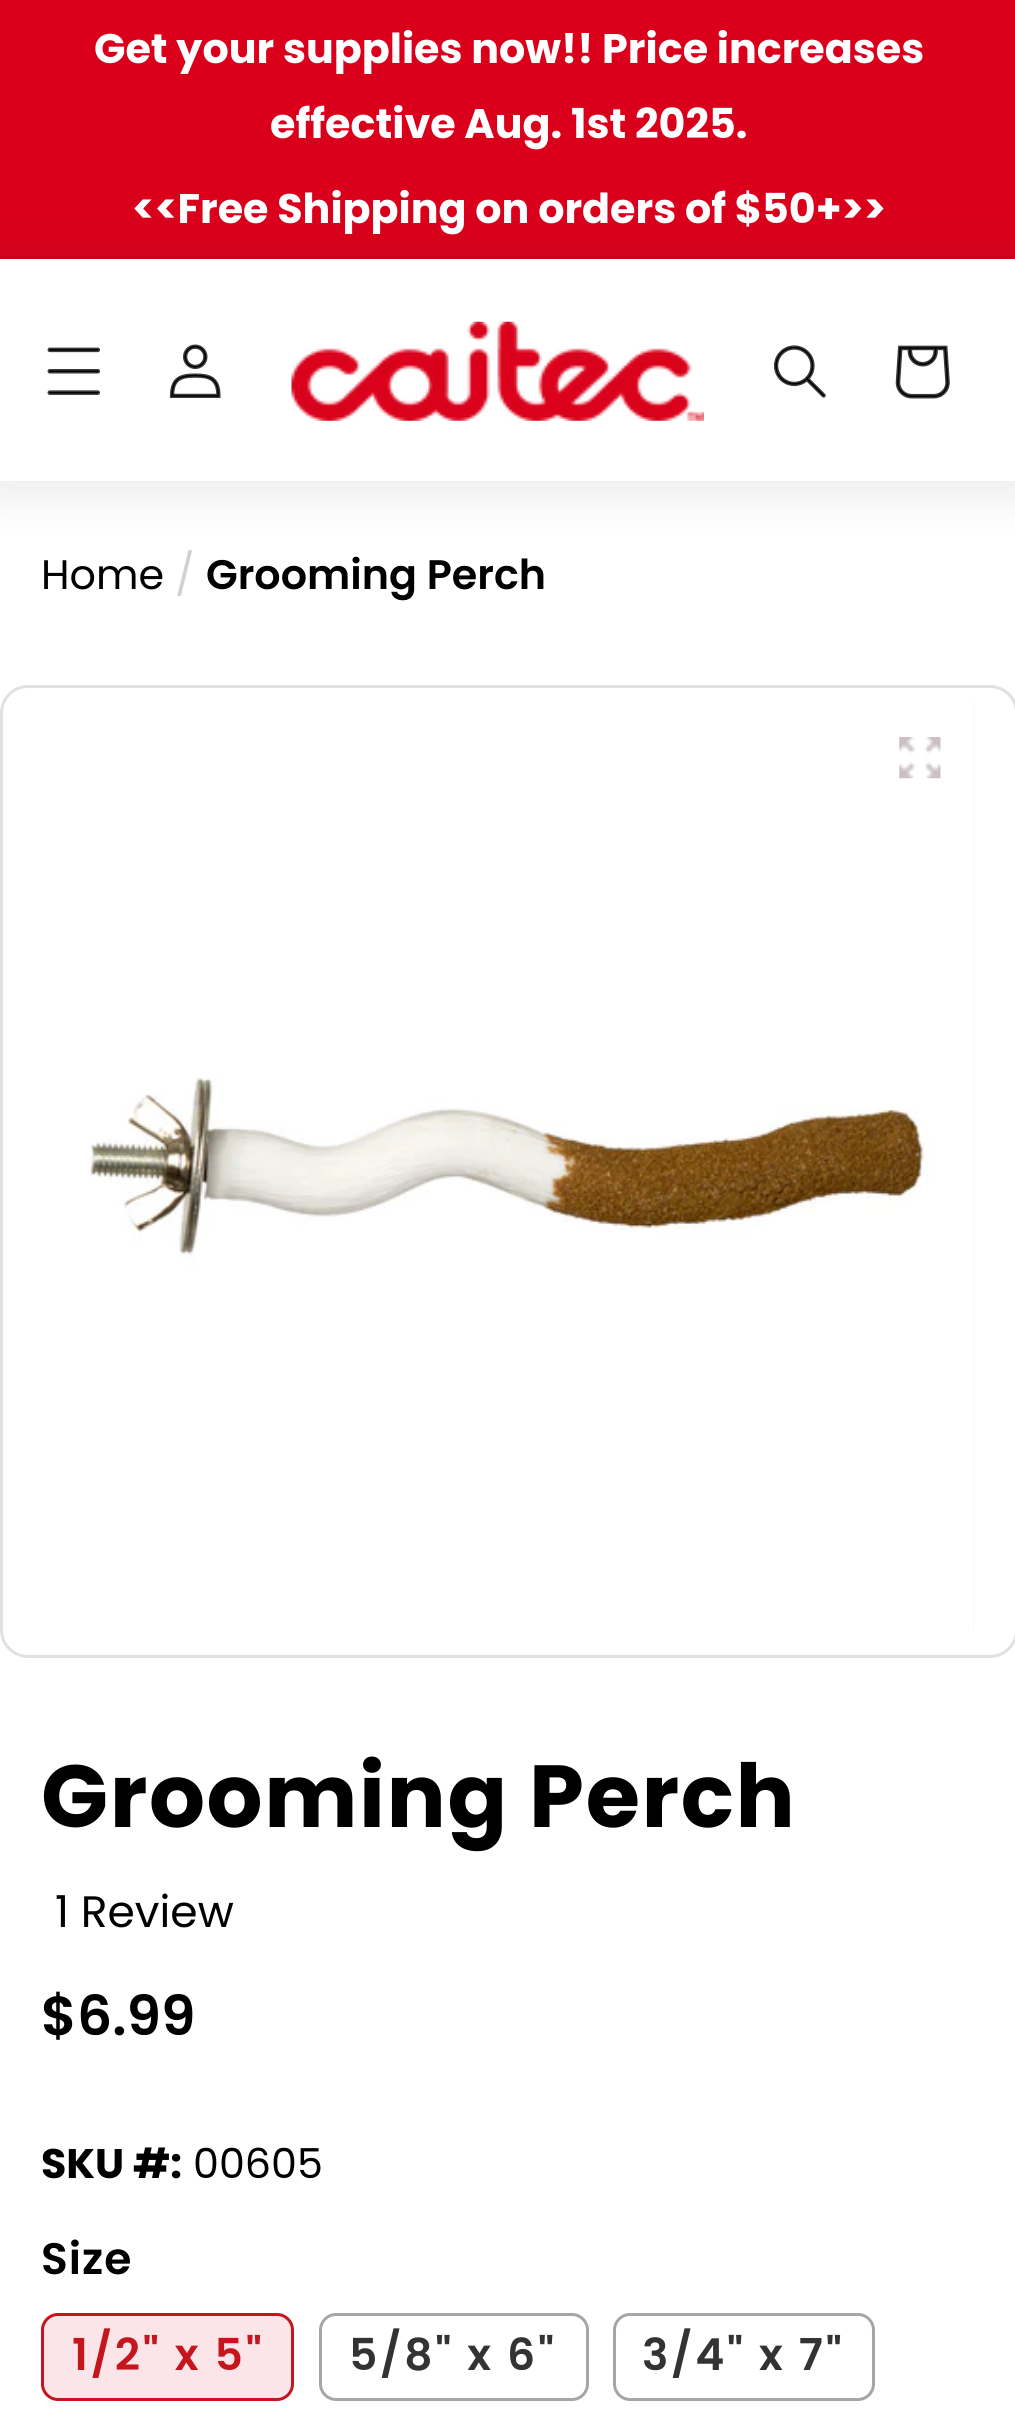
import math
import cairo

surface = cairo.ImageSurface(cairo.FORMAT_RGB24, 1015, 2418)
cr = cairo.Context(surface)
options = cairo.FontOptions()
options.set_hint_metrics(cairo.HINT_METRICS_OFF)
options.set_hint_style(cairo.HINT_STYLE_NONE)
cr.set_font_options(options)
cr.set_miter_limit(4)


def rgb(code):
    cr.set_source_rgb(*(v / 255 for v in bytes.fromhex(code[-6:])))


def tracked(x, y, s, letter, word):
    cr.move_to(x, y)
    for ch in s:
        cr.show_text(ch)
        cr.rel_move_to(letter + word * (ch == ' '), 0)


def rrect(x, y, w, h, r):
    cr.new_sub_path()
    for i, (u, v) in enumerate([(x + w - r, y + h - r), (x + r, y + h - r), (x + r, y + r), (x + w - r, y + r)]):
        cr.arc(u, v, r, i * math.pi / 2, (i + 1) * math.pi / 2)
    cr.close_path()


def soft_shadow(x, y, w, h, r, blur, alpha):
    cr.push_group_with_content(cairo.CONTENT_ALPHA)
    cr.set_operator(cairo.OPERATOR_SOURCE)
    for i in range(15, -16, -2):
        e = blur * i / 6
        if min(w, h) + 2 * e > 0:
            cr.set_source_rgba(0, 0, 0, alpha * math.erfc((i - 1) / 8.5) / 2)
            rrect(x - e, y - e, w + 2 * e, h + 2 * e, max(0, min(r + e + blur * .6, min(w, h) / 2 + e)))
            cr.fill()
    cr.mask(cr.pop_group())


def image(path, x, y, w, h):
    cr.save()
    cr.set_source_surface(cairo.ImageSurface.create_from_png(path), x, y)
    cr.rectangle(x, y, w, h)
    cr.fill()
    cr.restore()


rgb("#ffffff")
cr.paint()
rgb("#da001c")
cr.rectangle(0, 0, 1015, 256)
cr.fill()
rgb("#c9001a")
cr.rectangle(0, 256, 1015, 3)
cr.fill()
cr.save()
cr.set_fill_rule(cairo.FILL_RULE_EVEN_ODD)
cr.new_path()
cr.move_to(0, 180)
cr.line_to(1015, 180)
cr.line_to(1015, 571)
cr.line_to(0, 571)
cr.close_path()
cr.move_to(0, 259)
cr.line_to(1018, 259)
cr.line_to(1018, 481)
cr.line_to(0, 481)
cr.close_path()
cr.clip()
rgb("#383838")
soft_shadow(0, 264, 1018, 223, 0, 27.5, 0.14)
cr.restore()
image("img/1.png", 47, 347, 54, 48)
image("img/2.png", 169, 344, 52, 54)
image("img/3.png", 291, 321, 413, 100)
image("img/4.png", 773, 345, 53, 53)
image("img/5.png", 895, 345, 55, 54)
rrect(1.5, 686.5, 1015, 970, 26.5)
rgb("#e1e1e1")
cr.set_line_width(3)
cr.stroke()
rgb("#f9f9f9")
cr.rectangle(44, 701, 930, 930)
cr.fill()
image("img/6.png", 44, 701, 929, 930)
image("img/7.png", 899, 737, 42, 42)
rgb("#fbe5e8")
rrect(42.5, 2314.5, 250, 85, 15.5)
cr.fill_preserve()
rgb("#c4161c")
cr.stroke()
rrect(320.5, 2314.5, 267, 85, 15.5)
rgb("#a6a6a6")
cr.stroke()
rrect(614.5, 2314.5, 259, 85, 15.5)
cr.stroke()
cr.select_font_face("Poppins", cairo.FONT_SLANT_NORMAL, cairo.FONT_WEIGHT_BOLD)
cr.set_font_size(41.25)
rgb("#ffffff")
for x, y, s in [
    (94, 63, "Get your supplies now!! Price increases"),
    (270, 138, "effective Aug. 1st 2025."),
    (132, 223, "<<Free Shipping on orders of $50+>>"),
]:
    cr.move_to(x, y)
    cr.show_text(s)
cr.select_font_face("Poppins")
rgb("#000000")
cr.move_to(41, 589)
cr.show_text("Home")
rgb("#d1d1d1")
cr.move_to(175, 589)
cr.show_text("/")
cr.select_font_face("Poppins SemiBold")
rgb("#000000")
cr.move_to(206, 589)
cr.show_text("Grooming Perch")
cr.select_font_face("Poppins", cairo.FONT_SLANT_NORMAL, cairo.FONT_WEIGHT_BOLD)
cr.set_font_size(88)
tracked(41, 1827, "Grooming Perch", 1.6, 0)
cr.select_font_face("Poppins")
cr.set_font_size(44)
cr.move_to(55, 1927)
cr.show_text("1 Review")
cr.select_font_face("Poppins SemiBold")
cr.set_font_size(55)
cr.move_to(41, 2035)
cr.show_text("$6.99")
cr.select_font_face("Poppins", cairo.FONT_SLANT_NORMAL, cairo.FONT_WEIGHT_BOLD)
cr.set_font_size(41.25)
cr.move_to(41, 2178)
cr.show_text("SKU #:")
cr.select_font_face("Poppins")
cr.move_to(193, 2178)
cr.show_text("00605")
cr.select_font_face("Poppins SemiBold")
cr.set_font_size(44)
tracked(41, 2274, "Size", 1, 0)
rgb("#c4161c")
tracked(72, 2370, "1/2\" x 5\"", 2.75, 0)
rgb("#333333")
tracked(349, 2370, "5/8\" x 6\"", 2.75, 0)
tracked(642, 2370, "3/4\" x 7\"", 2.75, 0)
surface.write_to_png("page.png")
